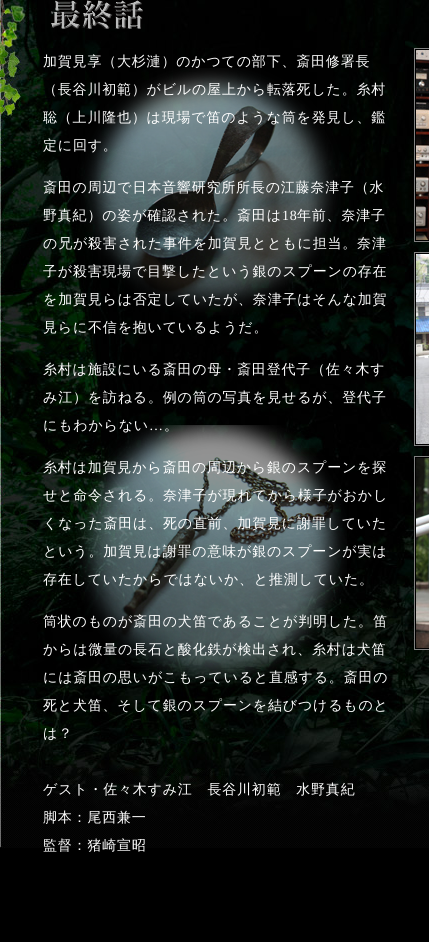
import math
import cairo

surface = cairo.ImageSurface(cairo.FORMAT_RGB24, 429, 942)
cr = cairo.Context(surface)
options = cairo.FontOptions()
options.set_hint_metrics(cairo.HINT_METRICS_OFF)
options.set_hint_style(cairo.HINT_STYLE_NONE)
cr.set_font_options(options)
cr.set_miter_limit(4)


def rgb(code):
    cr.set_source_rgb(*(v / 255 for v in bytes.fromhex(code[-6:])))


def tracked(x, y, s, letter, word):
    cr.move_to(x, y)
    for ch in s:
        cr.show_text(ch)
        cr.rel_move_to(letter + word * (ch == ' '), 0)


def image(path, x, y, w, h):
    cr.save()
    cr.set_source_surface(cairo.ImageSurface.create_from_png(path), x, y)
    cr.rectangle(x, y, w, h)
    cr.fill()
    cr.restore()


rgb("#000000")
cr.paint()
image("img/1.png", 0, 0, 429, 848)
image("img/2.png", 76, 68, 271, 612)
image("img/3.png", 51, 0, 92, 29)
rgb("#000000")
cr.rectangle(414.5, 48.5, 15, 193)
cr.fill_preserve()
rgb("#808080")
cr.set_line_width(1)
cr.stroke()
image("img/4.png", 416, 50, 13, 190)
rgb("#000000")
cr.rectangle(414.5, 252.5, 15, 193)
cr.fill_preserve()
rgb("#808080")
cr.stroke()
image("img/5.png", 416, 254, 13, 190)
rgb("#000000")
cr.rectangle(414.5, 456.5, 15, 193)
cr.fill_preserve()
rgb("#808080")
cr.stroke()
image("img/6.png", 416, 458, 13, 190)
cr.select_font_face("WenQuanYi Zen Hei Medium")
cr.set_font_size(14)
rgb("#ffffff")
for x, y, s in [
    (43, 66, "加賀見享（大杉漣）のかつての部下、斎田修署長"),
    (43, 94, "（長谷川初範）がビルの屋上から転落死した。糸村"),
    (43, 122, "聡（上川隆也）は現場で笛のような筒を発見し、鑑"),
    (43, 150, "定に回す。"),
    (43, 192, "斎田の周辺で日本音響研究所所長の江藤奈津子（水"),
    (43, 220, "野真紀）の姿が確認された。斎田は"),
]:
    tracked(x, y, s, 0.8, 0)
cr.select_font_face("Liberation Serif")
tracked(282, 220, "18", 0.8, 0)
cr.select_font_face("WenQuanYi Zen Hei Medium")
for x, y, s in [
    (297, 220, "年前、奈津子"),
    (43, 248, "の兄が殺害された事件を加賀見とともに担当。奈津"),
    (43, 276, "子が殺害現場で目撃したという銀のスプーンの存在"),
    (43, 304, "を加賀見らは否定していたが、奈津子はそんな加賀"),
    (43, 332, "見らに不信を抱いているようだ。"),
    (43, 374, "糸村は施設にいる斎田の母・斎田登代子（佐々木す"),
    (43, 402, "み江）を訪ねる。例の筒の写真を見せるが、登代子"),
    (43, 430, "にもわからない"),
]:
    tracked(x, y, s, 0.8, 0)
cr.select_font_face("Liberation Serif")
tracked(149, 430, "…", 0.8, 0)
cr.select_font_face("WenQuanYi Zen Hei Medium")
for x, y, s in [
    (164, 430, "。"),
    (43, 472, "糸村は加賀見から斎田の周辺から銀のスプーンを探"),
    (43, 500, "せと命令される。奈津子が現れてから様子がおかし"),
    (43, 528, "くなった斎田は、死の直前、加賀見に謝罪していた"),
    (43, 556, "という。加賀見は謝罪の意味が銀のスプーンが実は"),
    (43, 584, "存在していたからではないか、と推測していた。"),
    (43, 626, "筒状のものが斎田の犬笛であることが判明した。笛"),
    (43, 654, "からは微量の長石と酸化鉄が検出され、糸村は犬笛"),
    (43, 682, "には斎田の思いがこもっていると直感する。斎田の"),
    (43, 710, "死と犬笛、そして銀のスプーンを結びつけるものと"),
    (43, 738, "は？"),
    (43, 794, "ゲスト・佐々木すみ江　長谷川初範　水野真紀"),
    (43, 822, "脚本：尾西兼一"),
    (43, 850, "監督：猪崎宣昭"),
]:
    tracked(x, y, s, 0.8, 0)
surface.write_to_png("page.png")
